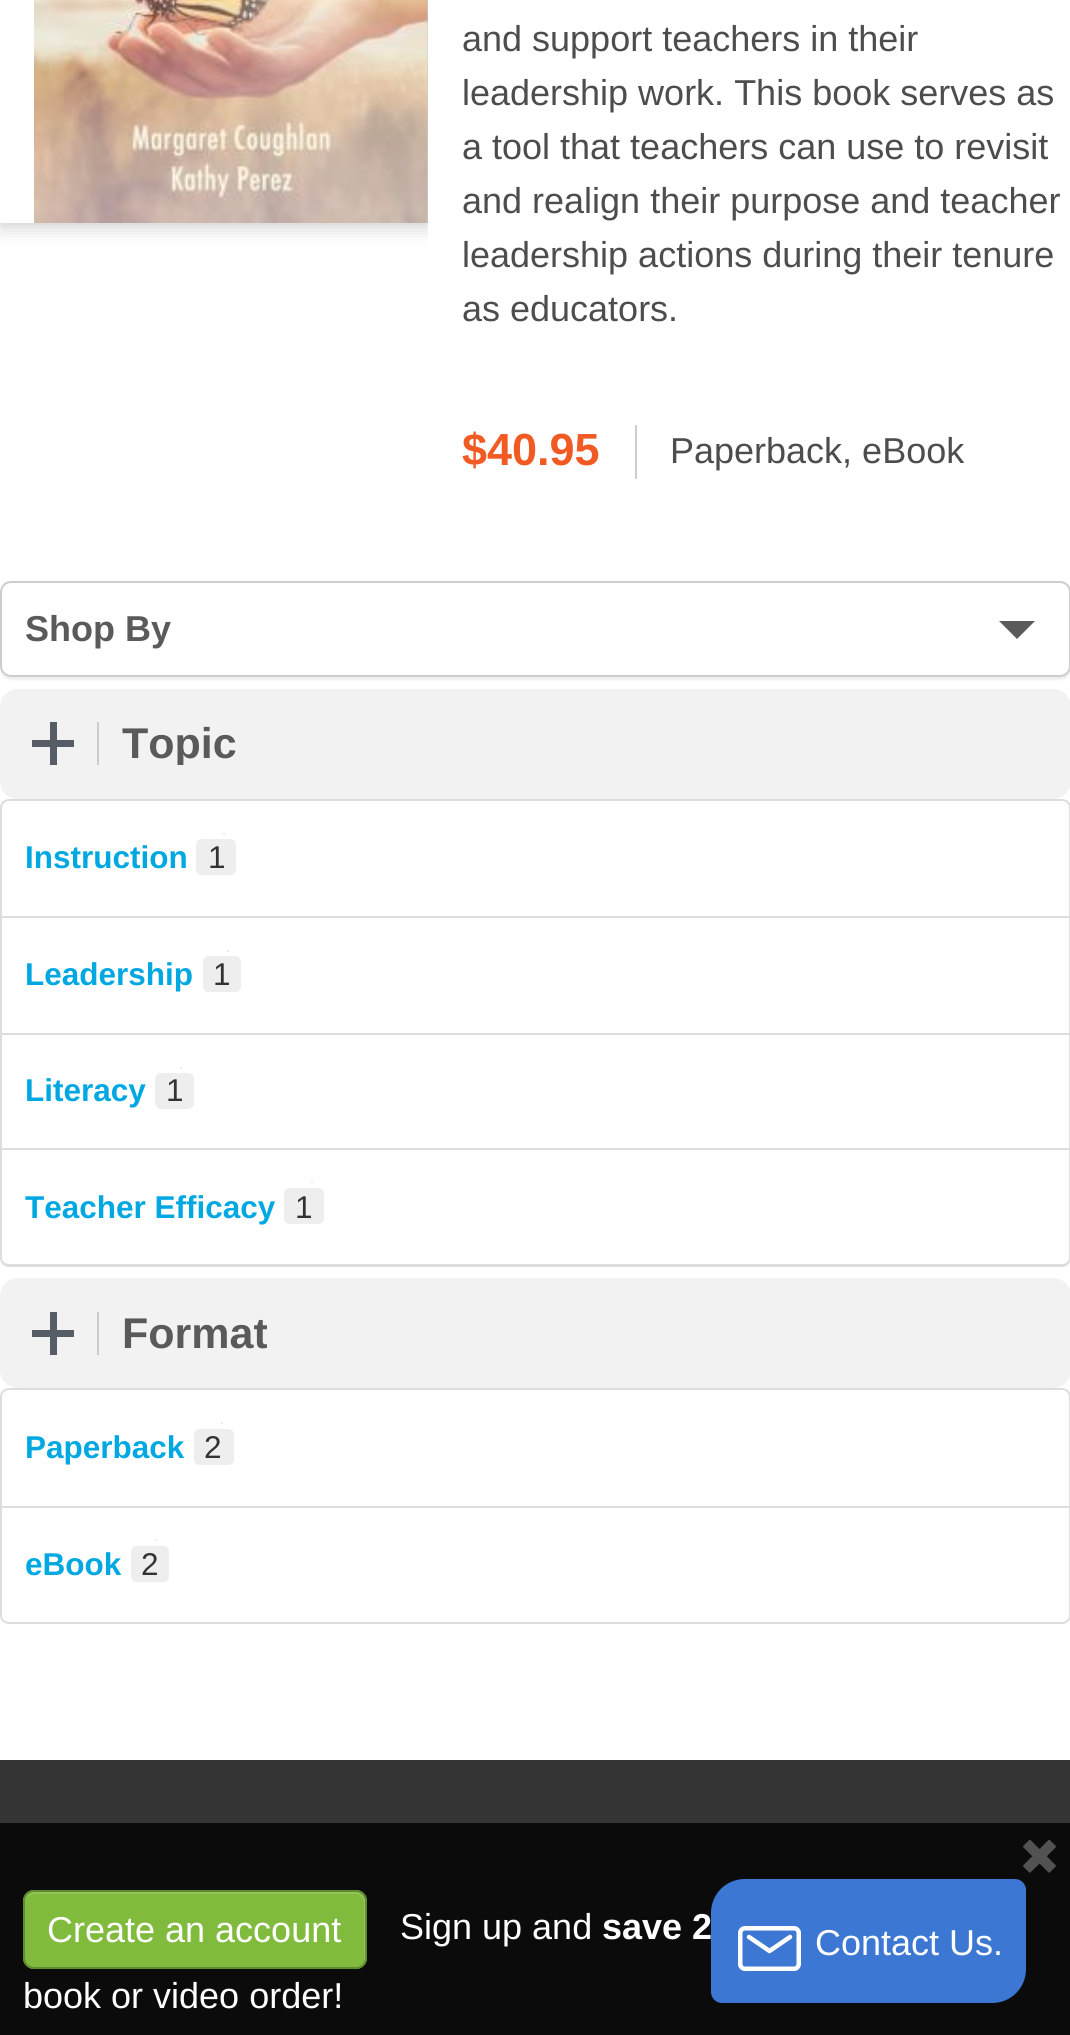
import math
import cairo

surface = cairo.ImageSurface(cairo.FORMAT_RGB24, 1070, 2035)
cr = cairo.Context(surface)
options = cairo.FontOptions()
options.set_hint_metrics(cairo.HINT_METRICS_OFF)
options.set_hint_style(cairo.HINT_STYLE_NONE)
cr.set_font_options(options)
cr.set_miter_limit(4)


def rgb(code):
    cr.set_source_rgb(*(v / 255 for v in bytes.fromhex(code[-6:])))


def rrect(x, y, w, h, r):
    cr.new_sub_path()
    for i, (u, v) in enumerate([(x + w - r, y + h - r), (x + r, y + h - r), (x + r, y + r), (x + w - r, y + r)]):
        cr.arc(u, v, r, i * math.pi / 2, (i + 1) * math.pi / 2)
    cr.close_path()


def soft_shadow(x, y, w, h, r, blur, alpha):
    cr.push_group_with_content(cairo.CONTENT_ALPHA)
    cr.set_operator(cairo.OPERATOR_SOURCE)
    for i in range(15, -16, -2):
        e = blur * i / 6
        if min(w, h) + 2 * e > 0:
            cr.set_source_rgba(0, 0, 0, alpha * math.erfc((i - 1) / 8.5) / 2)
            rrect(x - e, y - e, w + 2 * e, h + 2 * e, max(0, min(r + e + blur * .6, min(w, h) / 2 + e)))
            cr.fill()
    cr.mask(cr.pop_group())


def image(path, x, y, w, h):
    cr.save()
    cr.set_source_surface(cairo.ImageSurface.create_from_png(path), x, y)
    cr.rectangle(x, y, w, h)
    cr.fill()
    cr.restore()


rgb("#ffffff")
cr.paint()
cr.save()
cr.rectangle(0, 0, 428, 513)
cr.clip()
cr.set_fill_rule(cairo.FILL_RULE_EVEN_ODD)
cr.new_path()
cr.move_to(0, 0)
cr.line_to(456, 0)
cr.line_to(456, 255)
cr.line_to(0, 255)
cr.close_path()
cr.move_to(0, -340)
cr.line_to(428, -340)
cr.line_to(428, 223)
cr.line_to(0, 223)
cr.close_path()
cr.clip()
rgb("#000000")
soft_shadow(0, -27, 428, 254, 0, 9, 0.2)
cr.restore()
rgb("#cccccc")
cr.rectangle(427, 0, 1, 223)
cr.fill()
image("img/1.png", 34, 0, 394, 223)
cr.rectangle(635, 425, 2, 54)
cr.fill()
cr.save()
cr.set_fill_rule(cairo.FILL_RULE_EVEN_ODD)
cr.new_path()
cr.move_to(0, 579)
cr.line_to(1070, 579)
cr.line_to(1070, 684)
cr.line_to(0, 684)
cr.close_path()
cr.move_to(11, 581)
cr.line_to(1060, 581)
cr.curve_to(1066, 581, 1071, 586, 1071, 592)
cr.line_to(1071, 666)
cr.curve_to(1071, 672, 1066, 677, 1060, 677)
cr.line_to(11, 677)
cr.curve_to(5, 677, 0, 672, 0, 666)
cr.line_to(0, 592)
cr.curve_to(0, 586, 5, 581, 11, 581)
cr.close_path()
cr.clip()
rgb("#000000")
soft_shadow(0, 583, 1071, 97, 11, 1, 0.07)
cr.restore()
rrect(1, 582, 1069, 94, 10)
cr.stroke()
rgb("#5a5a5a")
cr.new_path()
cr.move_to(999, 621)
cr.line_to(1035, 621)
cr.line_to(1017, 639)
cr.close_path()
cr.fill()
rgb("#f2f2f2")
rrect(0, 689, 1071, 110, 18)
cr.fill()
for x, y, w, h, color in [
    (32, 740, 42, 7, "#565d67"),
    (50, 722, 7, 43, "#565d67"),
    (97, 722, 2, 43, "#cccccc"),
]:
    rgb(color)
    cr.rectangle(x, y, w, h)
    cr.fill()
cr.new_path()
cr.move_to(9, 800)
cr.line_to(1062, 800)
cr.curve_to(1066.5, 800, 1070, 803.5, 1070, 808)
cr.line_to(1070, 917)
cr.line_to(1, 917)
cr.line_to(1, 808)
cr.curve_to(1, 803.5, 4.5, 800, 9, 800)
cr.close_path()
rgb("#dddddd")
cr.stroke()
rgb("#eeeeee")
cr.new_path()
cr.move_to(201.5, 839)
cr.line_to(207, 839)
cr.line_to(207, 875)
cr.line_to(201.5, 875)
cr.curve_to(198.5, 875, 196, 872.5, 196, 869.5)
cr.line_to(196, 844.5)
cr.curve_to(196, 841.5, 198.5, 839, 201.5, 839)
cr.close_path()
cr.fill()
cr.rectangle(207, 839, 18, 36)
cr.fill()
cr.rectangle(223, 833, 2, 2)
cr.fill()
cr.new_path()
cr.move_to(225, 839)
cr.line_to(230.5, 839)
cr.curve_to(233.5, 839, 236, 841.5, 236, 844.5)
cr.line_to(236, 869.5)
cr.curve_to(236, 872.5, 233.5, 875, 230.5, 875)
cr.line_to(225, 875)
cr.close_path()
cr.fill()
for x, y, w, h, color in [
    (1069, 918, 1, 232, "#dddddd"),
    (0, 1033, 1070, 2, "#dddddd"),
    (0, 918, 2, 117, "#dddddd"),
]:
    rgb(color)
    cr.rectangle(x, y, w, h)
    cr.fill()
rgb("#eeeeee")
cr.new_path()
cr.move_to(208.5, 956)
cr.line_to(214, 956)
cr.line_to(214, 992)
cr.line_to(208.5, 992)
cr.curve_to(205.5, 992, 203, 989.5, 203, 986.5)
cr.line_to(203, 961.5)
cr.curve_to(203, 958.5, 205.5, 956, 208.5, 956)
cr.close_path()
cr.fill()
cr.rectangle(214, 956, 16, 36)
cr.fill()
cr.rectangle(227, 950, 2, 2)
cr.fill()
cr.new_path()
cr.move_to(230, 956)
cr.line_to(235.5, 956)
cr.curve_to(238.5, 956, 241, 958.5, 241, 961.5)
cr.line_to(241, 986.5)
cr.curve_to(241, 989.5, 238.5, 992, 235.5, 992)
cr.line_to(230, 992)
cr.close_path()
cr.fill()
rgb("#dddddd")
cr.rectangle(0, 1148, 1070, 2)
cr.fill()
cr.rectangle(0, 1035, 2, 115)
cr.fill()
rgb("#eeeeee")
cr.new_path()
cr.move_to(161, 1073)
cr.line_to(167, 1073)
cr.line_to(167, 1109)
cr.line_to(161, 1109)
cr.curve_to(157.5, 1109, 155, 1106.5, 155, 1103)
cr.line_to(155, 1079)
cr.curve_to(155, 1075.5, 157.5, 1073, 161, 1073)
cr.close_path()
cr.fill()
cr.rectangle(167, 1073, 15, 36)
cr.fill()
cr.rectangle(180, 1067, 2, 2)
cr.fill()
cr.new_path()
cr.move_to(182, 1073)
cr.line_to(188, 1073)
cr.curve_to(191.5, 1073, 194, 1075.5, 194, 1079)
cr.line_to(194, 1103)
cr.curve_to(194, 1106.5, 191.5, 1109, 188, 1109)
cr.line_to(182, 1109)
cr.close_path()
cr.fill()
rgb("#dddddd")
cr.set_fill_rule(cairo.FILL_RULE_EVEN_ODD)
cr.new_path()
cr.move_to(0, 1150)
cr.line_to(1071, 1150)
cr.line_to(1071, 1258)
cr.curve_to(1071, 1263, 1067, 1267, 1062, 1267)
cr.line_to(9, 1267)
cr.curve_to(4, 1267, 0, 1263, 0, 1258)
cr.close_path()
cr.move_to(2, 1150)
cr.line_to(1069, 1150)
cr.line_to(1069, 1258)
cr.curve_to(1069, 1261, 1066, 1264, 1062, 1264)
cr.line_to(9, 1264)
cr.curve_to(5, 1264, 2, 1261, 2, 1258)
cr.close_path()
cr.fill()
rgb("#eeeeee")
cr.new_path()
cr.move_to(289.5, 1188)
cr.line_to(295, 1188)
cr.line_to(295, 1224)
cr.line_to(289.5, 1224)
cr.curve_to(286.5, 1224, 284, 1221.5, 284, 1218.5)
cr.line_to(284, 1193.5)
cr.curve_to(284, 1190.5, 286.5, 1188, 289.5, 1188)
cr.close_path()
cr.fill()
cr.rectangle(295, 1188, 18, 36)
cr.fill()
cr.rectangle(311, 1181, 2, 2)
cr.fill()
cr.new_path()
cr.move_to(313, 1188)
cr.line_to(318.5, 1188)
cr.curve_to(321.5, 1188, 324, 1190.5, 324, 1193.5)
cr.line_to(324, 1218.5)
cr.curve_to(324, 1221.5, 321.5, 1224, 318.5, 1224)
cr.line_to(313, 1224)
cr.close_path()
cr.fill()
rgb("#f2f2f2")
rrect(0, 1278, 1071, 110, 18)
cr.fill()
for x, y, w, h, color in [
    (32, 1330, 42, 7, "#565d67"),
    (50, 1312, 7, 43, "#565d67"),
    (97, 1312, 2, 43, "#cccccc"),
]:
    rgb(color)
    cr.rectangle(x, y, w, h)
    cr.fill()
cr.new_path()
cr.move_to(9, 1389)
cr.line_to(1062, 1389)
cr.curve_to(1066.5, 1389, 1070, 1392.5, 1070, 1397)
cr.line_to(1070, 1507)
cr.line_to(1, 1507)
cr.line_to(1, 1397)
cr.curve_to(1, 1392.5, 4.5, 1389, 9, 1389)
cr.close_path()
rgb("#dddddd")
cr.stroke()
rgb("#eeeeee")
cr.new_path()
cr.move_to(199.5, 1429)
cr.line_to(205, 1429)
cr.line_to(205, 1465)
cr.line_to(199.5, 1465)
cr.curve_to(196.5, 1465, 194, 1462.5, 194, 1459.5)
cr.line_to(194, 1434.5)
cr.curve_to(194, 1431.5, 196.5, 1429, 199.5, 1429)
cr.close_path()
cr.fill()
cr.rectangle(205, 1429, 18, 36)
cr.fill()
cr.rectangle(221, 1422, 2, 2)
cr.fill()
cr.new_path()
cr.move_to(223, 1429)
cr.line_to(228.5, 1429)
cr.curve_to(231.5, 1429, 234, 1431.5, 234, 1434.5)
cr.line_to(234, 1459.5)
cr.curve_to(234, 1462.5, 231.5, 1465, 228.5, 1465)
cr.line_to(223, 1465)
cr.close_path()
cr.fill()
rgb("#dddddd")
cr.new_path()
cr.move_to(0, 1508)
cr.line_to(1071, 1508)
cr.line_to(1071, 1616)
cr.curve_to(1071, 1620, 1067, 1624, 1062, 1624)
cr.line_to(9, 1624)
cr.curve_to(4, 1624, 0, 1620, 0, 1616)
cr.close_path()
cr.move_to(2, 1508)
cr.line_to(1069, 1508)
cr.line_to(1069, 1616)
cr.curve_to(1069, 1619, 1066, 1622, 1062, 1622)
cr.line_to(9, 1622)
cr.curve_to(5, 1622, 2, 1619, 2, 1616)
cr.close_path()
cr.fill()
rgb("#eeeeee")
cr.new_path()
cr.move_to(136.5, 1546)
cr.line_to(142, 1546)
cr.line_to(142, 1582)
cr.line_to(136.5, 1582)
cr.curve_to(133.5, 1582, 131, 1579.5, 131, 1576.5)
cr.line_to(131, 1551.5)
cr.curve_to(131, 1548.5, 133.5, 1546, 136.5, 1546)
cr.close_path()
cr.fill()
cr.rectangle(142, 1546, 16, 36)
cr.fill()
cr.rectangle(155, 1539, 2, 2)
cr.fill()
cr.new_path()
cr.move_to(158, 1546)
cr.line_to(163.5, 1546)
cr.curve_to(166.5, 1546, 169, 1548.5, 169, 1551.5)
cr.line_to(169, 1576.5)
cr.curve_to(169, 1579.5, 166.5, 1582, 163.5, 1582)
cr.line_to(158, 1582)
cr.close_path()
cr.fill()
rgb("#353535")
cr.rectangle(0, 1760, 1070, 63)
cr.fill()
rgb("#0b0b0b")
cr.rectangle(0, 1823, 1070, 212)
cr.fill()
image("img/2.png", 1023, 1839, 33, 34)
rgb("#80bb3d")
rrect(23, 1890, 344, 79, 11)
cr.fill()
rgb("#93c55a")
cr.set_fill_rule(cairo.FILL_RULE_WINDING)
cr.new_path()
cr.move_to(34, 1894)
cr.line_to(356, 1894)
cr.curve_to(360, 1894, 364, 1899, 364, 1904)
cr.line_to(364, 1960)
cr.line_to(364, 1963)
cr.curve_to(364, 1962, 365, 1960, 365, 1958)
cr.line_to(365, 1901)
cr.curve_to(365, 1896, 361, 1892, 356, 1892)
cr.line_to(34, 1892)
cr.curve_to(29, 1892, 25, 1896, 25, 1901)
cr.line_to(25, 1904)
cr.curve_to(25, 1899, 29, 1894, 34, 1894)
cr.close_path()
cr.fill()
rrect(24, 1891, 342, 77, 10)
rgb("#608c2e")
cr.stroke()
rgb("#3c78d3")
cr.new_path()
cr.move_to(745, 1879)
cr.line_to(1015, 1879)
cr.curve_to(1021, 1879, 1026, 1884, 1026, 1890)
cr.line_to(1026, 1969)
cr.curve_to(1026, 1988, 1011, 2003, 992, 2003)
cr.line_to(722, 2003)
cr.curve_to(716, 2003, 711, 1998, 711, 1992)
cr.line_to(711, 1913)
cr.curve_to(711, 1894, 726, 1879, 745, 1879)
cr.close_path()
cr.fill()
rrect(740.25, 1928.25, 58.5, 40.5, 4.75)
rgb("#ffffff")
cr.set_line_width(4.5)
cr.stroke()
cr.new_path()
cr.move_to(749, 1937)
cr.line_to(769.5, 1951)
cr.line_to(790, 1937)
cr.set_line_cap(cairo.LINE_CAP_ROUND)
cr.set_line_join(cairo.LINE_JOIN_ROUND)
cr.stroke()
cr.select_font_face("Liberation Sans")
cr.set_font_size(36)
rgb("#4d4d4d")
for x, y, s in [
    (462, 51, "and support teachers in their"),
    (462, 105, "leadership work. This book serves as"),
    (462, 159, "a tool that teachers can use to revisit"),
    (462, 213, "and realign their purpose and teacher"),
    (462, 267, "leadership actions during their tenure"),
    (462, 321, "as educators."),
]:
    cr.move_to(x, y)
    cr.show_text(s)
cr.select_font_face("Liberation Sans", cairo.FONT_SLANT_NORMAL, cairo.FONT_WEIGHT_BOLD)
cr.set_font_size(45)
rgb("#f15a22")
cr.move_to(462, 465)
cr.show_text("$40.95")
cr.select_font_face("Liberation Sans")
cr.set_font_size(36)
rgb("#4d4d4d")
cr.move_to(670, 463)
cr.show_text("Paperback, eBook")
cr.select_font_face("Liberation Sans", cairo.FONT_SLANT_NORMAL, cairo.FONT_WEIGHT_BOLD)
rgb("#5a5a5a")
cr.move_to(25, 641)
cr.show_text("Shop By")
cr.save()
cr.rectangle(99, 722, 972, 43)
cr.clip()
cr.set_font_size(43)
cr.move_to(122, 758)
cr.show_text("Topic")
cr.restore()
cr.set_font_size(31.5)
rgb("#00a8e2")
cr.move_to(25, 868)
cr.show_text("Instruction")
cr.select_font_face("Liberation Sans")
rgb("#333333")
cr.move_to(208, 868)
cr.show_text("1")
cr.select_font_face("Liberation Sans", cairo.FONT_SLANT_NORMAL, cairo.FONT_WEIGHT_BOLD)
rgb("#00a8e2")
cr.move_to(25, 985)
cr.show_text("Leadership")
cr.select_font_face("Liberation Sans")
rgb("#333333")
cr.move_to(213, 985)
cr.show_text("1")
cr.select_font_face("Liberation Sans", cairo.FONT_SLANT_NORMAL, cairo.FONT_WEIGHT_BOLD)
rgb("#00a8e2")
cr.move_to(25, 1101)
cr.show_text("Literacy")
cr.select_font_face("Liberation Sans")
rgb("#333333")
cr.move_to(166, 1101)
cr.show_text("1")
cr.select_font_face("Liberation Sans", cairo.FONT_SLANT_NORMAL, cairo.FONT_WEIGHT_BOLD)
rgb("#00a8e2")
cr.move_to(25, 1218)
cr.show_text("Teacher Efficacy")
cr.select_font_face("Liberation Sans")
rgb("#333333")
cr.move_to(295, 1218)
cr.show_text("1")
cr.select_font_face("Liberation Sans", cairo.FONT_SLANT_NORMAL, cairo.FONT_WEIGHT_BOLD)
cr.set_font_size(43)
rgb("#5a5a5a")
cr.move_to(122, 1348)
cr.show_text("Format")
cr.set_font_size(31.5)
rgb("#00a8e2")
cr.move_to(25, 1458)
cr.show_text("Paperback")
cr.select_font_face("Liberation Sans")
rgb("#333333")
cr.move_to(204, 1458)
cr.show_text("2")
cr.select_font_face("Liberation Sans", cairo.FONT_SLANT_NORMAL, cairo.FONT_WEIGHT_BOLD)
rgb("#00a8e2")
cr.move_to(25, 1575)
cr.show_text("eBook")
cr.select_font_face("Liberation Sans")
rgb("#333333")
cr.move_to(141, 1575)
cr.show_text("2")
cr.set_font_size(36)
rgb("#ffffff")
cr.move_to(47, 1942)
cr.show_text("Create an account")
cr.move_to(400, 1939)
cr.show_text("Sign up and")
cr.select_font_face("Liberation Sans", cairo.FONT_SLANT_NORMAL, cairo.FONT_WEIGHT_BOLD)
cr.move_to(602, 1939)
cr.show_text("save 2")
cr.select_font_face("Liberation Sans")
cr.move_to(23, 2008)
cr.show_text("book or video order!")
cr.move_to(815, 1955)
cr.show_text("Contact Us.")
surface.write_to_png("page.png")
